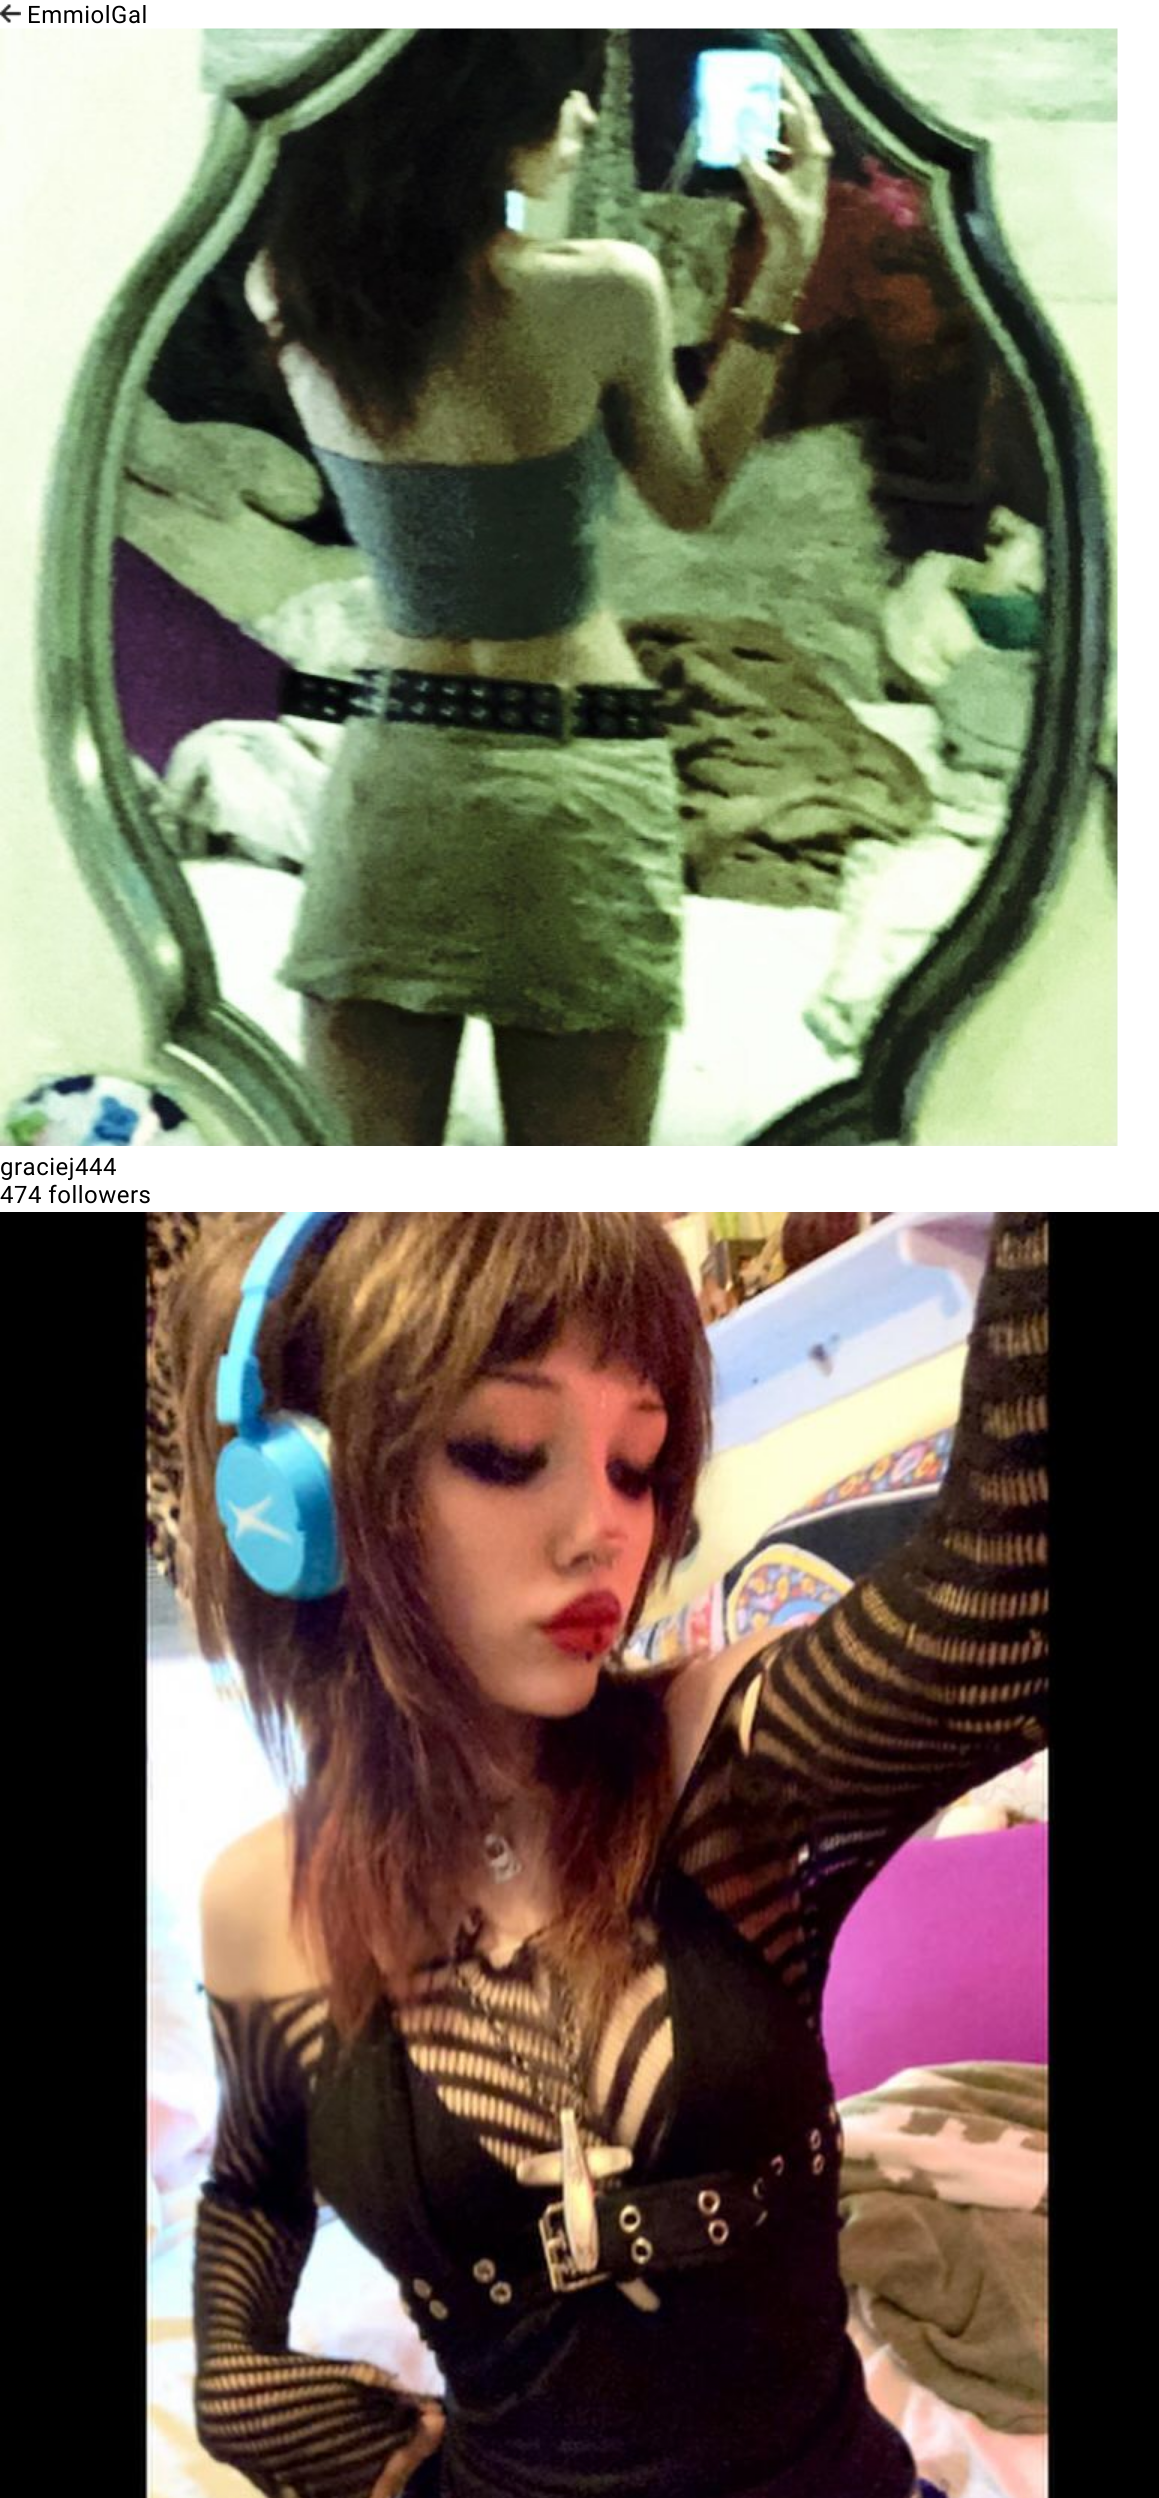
import math
import cairo

surface = cairo.ImageSurface(cairo.FORMAT_RGB24, 1159, 2498)
cr = cairo.Context(surface)
options = cairo.FontOptions()
options.set_hint_metrics(cairo.HINT_METRICS_OFF)
options.set_hint_style(cairo.HINT_STYLE_NONE)
cr.set_font_options(options)
cr.set_miter_limit(4)


def rgb(code):
    cr.set_source_rgb(*(v / 255 for v in bytes.fromhex(code[-6:])))


def tracked(x, y, s, letter, word):
    cr.move_to(x, y)
    for ch in s:
        cr.show_text(ch)
        cr.rel_move_to(letter + word * (ch == ' '), 0)


def image(path, x, y, w, h):
    cr.save()
    cr.set_source_surface(cairo.ImageSurface.create_from_png(path), x, y)
    cr.rectangle(x, y, w, h)
    cr.fill()
    cr.restore()


rgb("#ffffff")
cr.paint()
image("img/1.png", 0, 4, 21, 19)
image("img/2.png", 0, 28, 1118, 1118)
image("img/3.png", 0, 1212, 1159, 1286)
cr.select_font_face("Roboto")
cr.set_font_size(24)
rgb("#000000")
for x, y, s in [
    (27, 23, "EmmiolGal"),
    (0, 1175, "graciej444"),
    (0, 1203, "474 followers"),
]:
    tracked(x, y, s, 0.5, 0)
surface.write_to_png("page.png")
